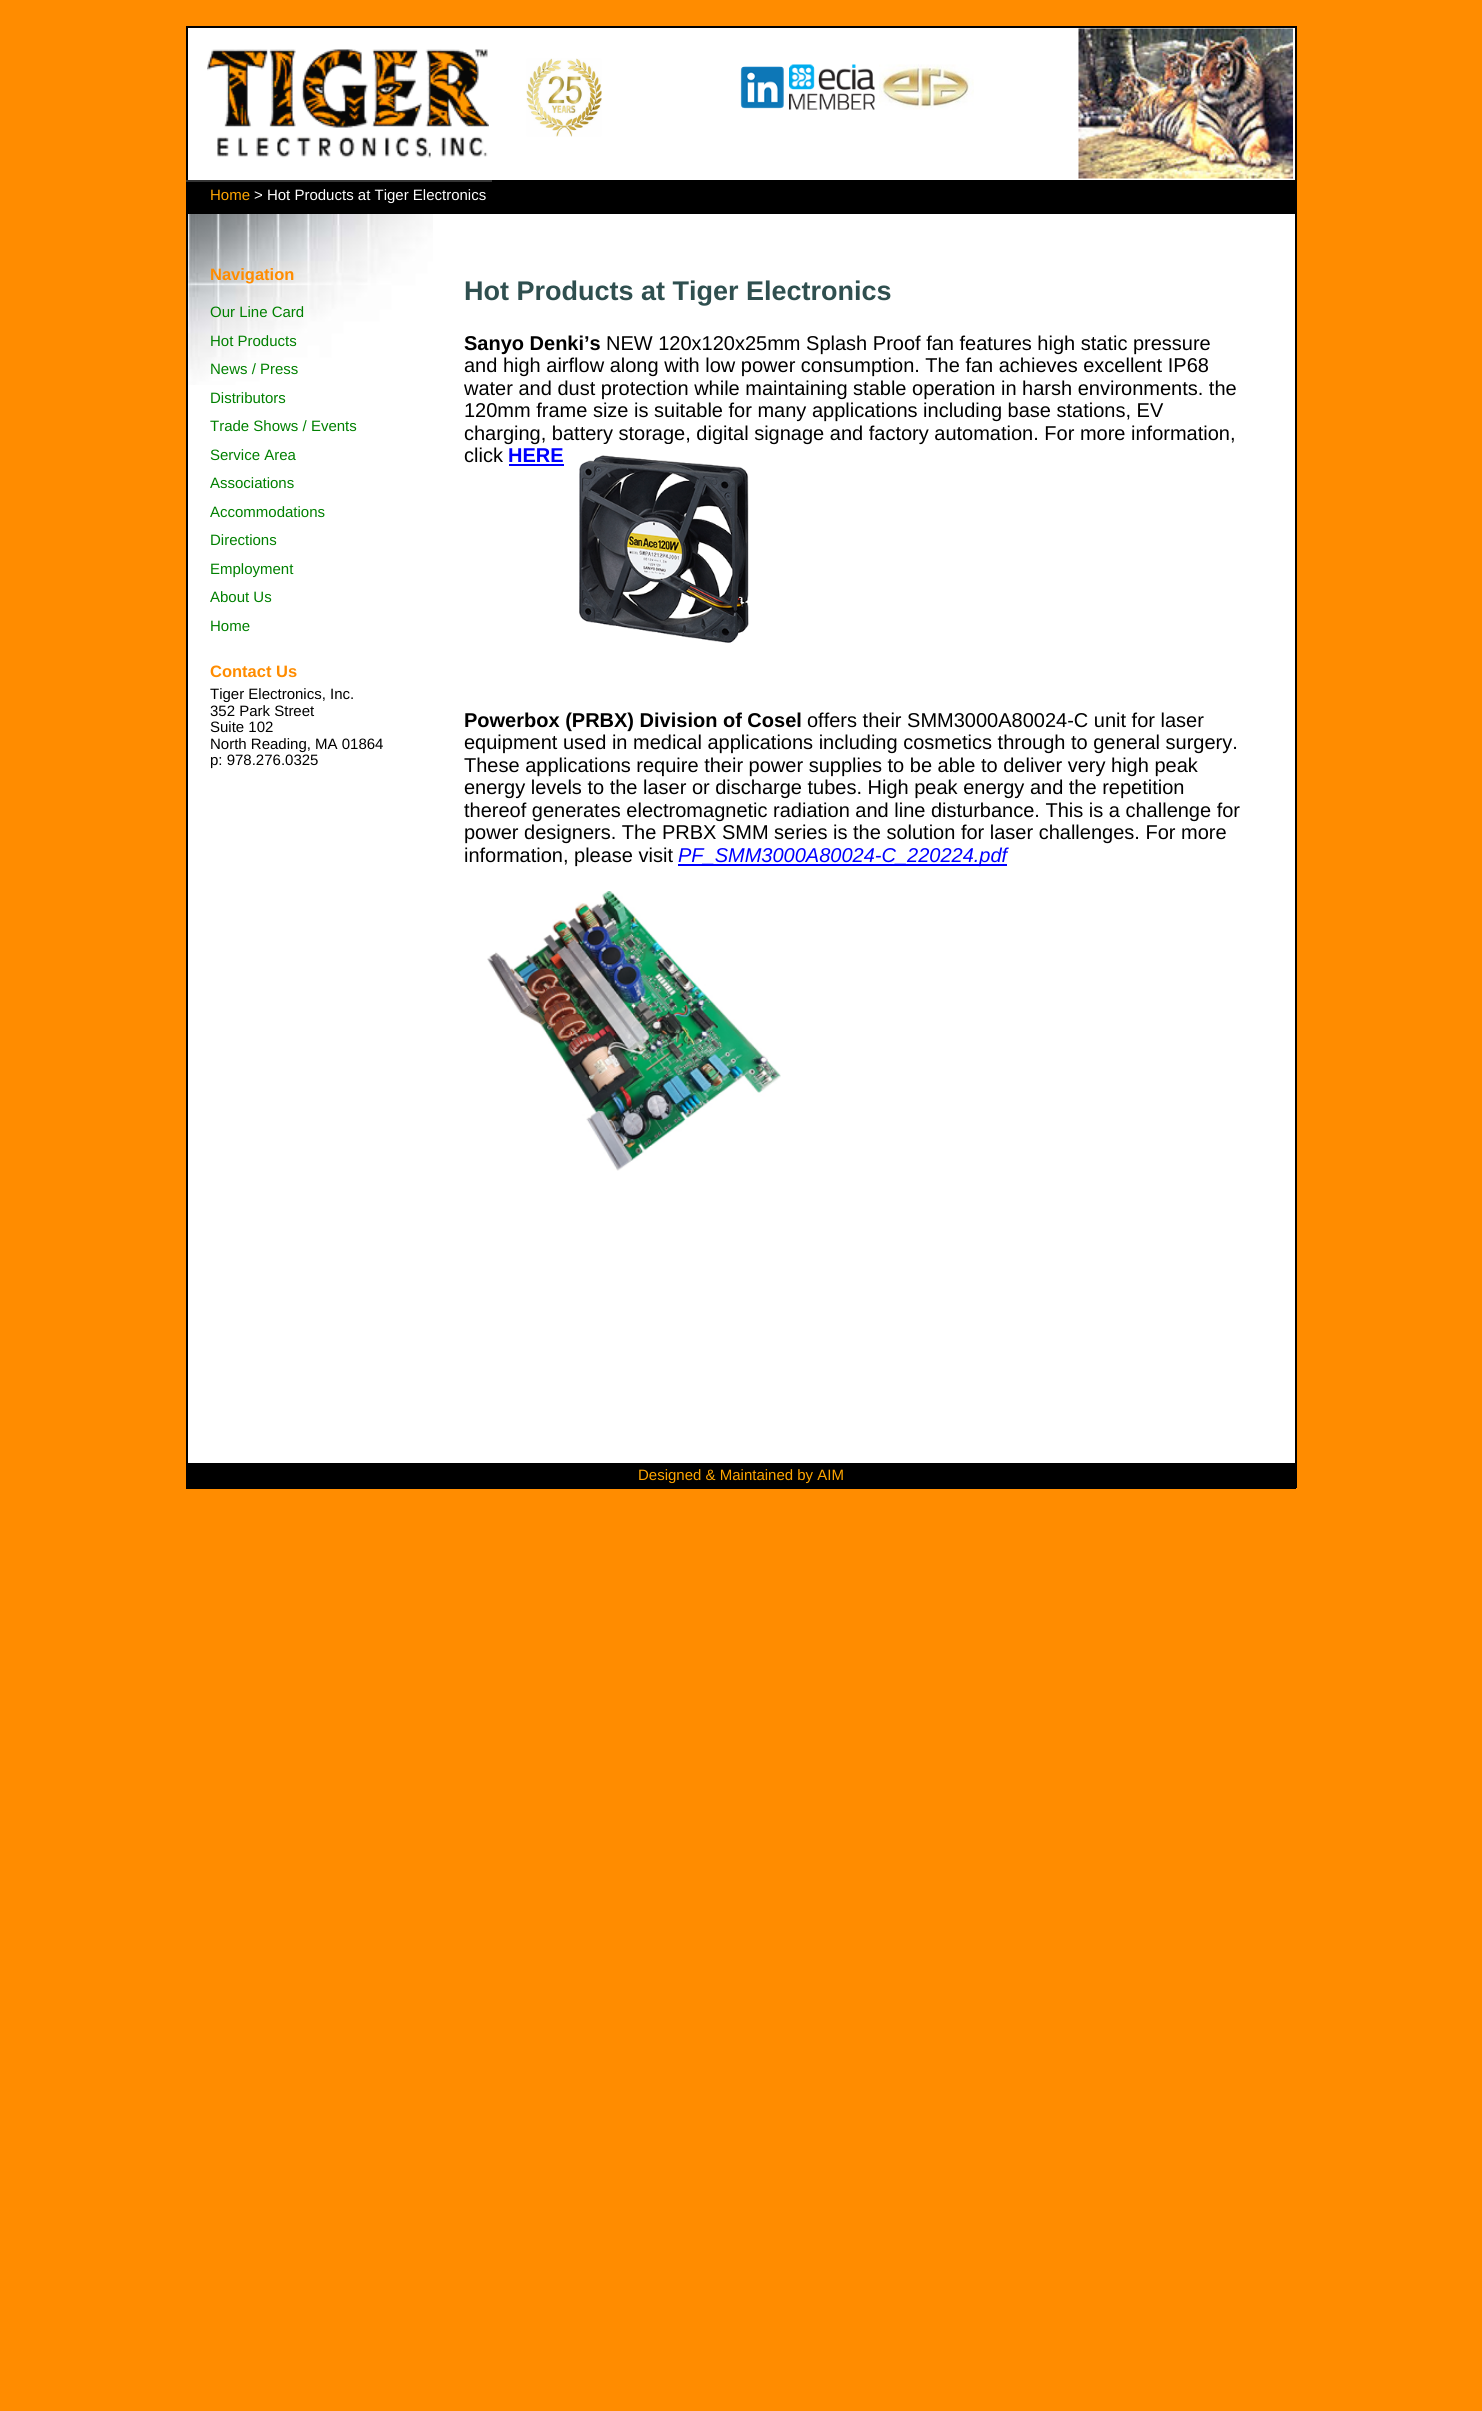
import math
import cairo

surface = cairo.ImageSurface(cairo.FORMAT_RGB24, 1482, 2411)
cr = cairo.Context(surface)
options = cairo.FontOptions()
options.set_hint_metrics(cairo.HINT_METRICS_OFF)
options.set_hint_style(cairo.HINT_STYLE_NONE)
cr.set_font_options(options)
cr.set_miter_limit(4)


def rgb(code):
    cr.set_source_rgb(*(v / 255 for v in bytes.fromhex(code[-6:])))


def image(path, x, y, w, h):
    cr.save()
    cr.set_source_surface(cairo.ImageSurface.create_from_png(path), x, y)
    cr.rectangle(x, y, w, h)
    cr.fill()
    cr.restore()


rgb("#ff8c00")
cr.paint()
for x, y, w, h, color in [
    (188, 28, 1107, 152, "#ffffff"),
    (186, 26, 1110, 2, "#000000"),
    (1295, 26, 2, 156, "#000000"),
    (492, 180, 804, 2, "#000000"),
    (186, 26, 2, 156, "#000000"),
    (186, 180, 306, 2, "#333333"),
]:
    rgb(color)
    cr.rectangle(x, y, w, h)
    cr.fill()
image("img/1.png", 207, 49, 282, 109)
image("img/2.png", 526, 58, 76, 79)
image("img/3.png", 740, 66, 44, 43)
image("img/4.png", 789, 64, 86, 46)
image("img/5.png", 879, 64, 95, 46)
image("img/6.png", 1078, 28, 215, 151)
for x, y, w, h, color in [
    (188, 214, 1107, 1249, "#ffffff"),
    (186, 182, 1110, 2, "#000000"),
    (1295, 182, 2, 1306, "#000000"),
    (186, 1487, 1110, 2, "#000000"),
    (186, 182, 2, 1306, "#000000"),
    (188, 184, 1107, 28, "#000000"),
    (186, 212, 1110, 2, "#000000"),
]:
    rgb(color)
    cr.rectangle(x, y, w, h)
    cr.fill()
image("img/7.png", 188, 214, 245, 171)
rgb("#0000ff")
cr.rectangle(509, 464, 55, 2)
cr.fill()
cr.rectangle(678, 864, 329, 2)
cr.fill()
image("img/9.png", 487, 891, 294, 280)
rgb("#000000")
cr.rectangle(188, 1463, 1107, 24)
cr.fill()
cr.select_font_face("Liberation Sans")
cr.set_font_size(15)
rgb("#ffa500")
cr.move_to(210, 200)
cr.show_text("Home")
rgb("#ffffff")
cr.move_to(254, 200)
cr.show_text("> Hot Products at Tiger Electronics")
cr.select_font_face("Liberation Sans", cairo.FONT_SLANT_NORMAL, cairo.FONT_WEIGHT_BOLD)
cr.set_font_size(16.5)
rgb("#ff8c00")
cr.move_to(210, 280)
cr.show_text("Navigation")
cr.select_font_face("Liberation Sans")
cr.set_font_size(15)
rgb("#008000")
for x, y, s in [
    (210, 317, "Our Line Card"),
    (210, 346, "Hot Products"),
    (210, 374, "News / Press"),
    (210, 403, "Distributors"),
    (210, 431, "Trade Shows / Events"),
    (210, 460, "Service Area"),
    (210, 488, "Associations"),
    (210, 517, "Accommodations"),
    (210, 545, "Directions"),
    (210, 574, "Employment"),
    (210, 602, "About Us"),
    (210, 631, "Home"),
]:
    cr.move_to(x, y)
    cr.show_text(s)
cr.select_font_face("Liberation Sans", cairo.FONT_SLANT_NORMAL, cairo.FONT_WEIGHT_BOLD)
cr.set_font_size(16.5)
rgb("#ff8c00")
cr.move_to(210, 677)
cr.show_text("Contact Us")
cr.select_font_face("Liberation Sans")
cr.set_font_size(15)
rgb("#000000")
for x, y, s in [
    (210, 699, "Tiger Electronics, Inc."),
    (210, 716, "352 Park Street"),
    (210, 732, "Suite 102"),
    (210, 749, "North Reading, MA 01864"),
    (210, 765, "p: 978.276.0325"),
]:
    cr.move_to(x, y)
    cr.show_text(s)
cr.select_font_face("Liberation Sans", cairo.FONT_SLANT_NORMAL, cairo.FONT_WEIGHT_BOLD)
cr.set_font_size(27)
rgb("#2f4f4f")
cr.move_to(464, 300)
cr.show_text("Hot Products at Tiger Electronics")
cr.set_font_size(20)
rgb("#000000")
cr.move_to(464, 350)
cr.show_text("Sanyo Denki’s")
cr.select_font_face("Liberation Sans")
for x, y, s in [
    (606, 350, "NEW 120x120x25mm Splash Proof fan features high static pressure"),
    (464, 372, "and high airflow along with low power consumption. The fan achieves excellent IP68"),
    (464, 395, "water and dust protection while maintaining stable operation in harsh environments. the"),
    (464, 417, "120mm frame size is suitable for many applications including base stations, EV"),
    (464, 440, "charging, battery storage, digital signage and factory automation. For more information,"),
    (464, 462, "click"),
]:
    cr.move_to(x, y)
    cr.show_text(s)
cr.select_font_face("Liberation Sans", cairo.FONT_SLANT_NORMAL, cairo.FONT_WEIGHT_BOLD)
rgb("#0000ff")
cr.move_to(508, 462)
cr.show_text("HERE")
image("img/8.png", 579, 444, 170, 199)
rgb("#000000")
cr.move_to(464, 727)
cr.show_text("Powerbox (PRBX) Division of Cosel")
cr.select_font_face("Liberation Sans")
for x, y, s in [
    (807, 727, "offers their SMM3000A80024-C unit for laser"),
    (464, 749, "equipment used in medical applications including cosmetics through to general surgery."),
    (464, 772, "These applications require their power supplies to be able to deliver very high peak"),
    (464, 794, "energy levels to the laser or discharge tubes. High peak energy and the repetition"),
    (464, 817, "thereof generates electromagnetic radiation and line disturbance. This is a challenge for"),
    (464, 839, "power designers. The PRBX SMM series is the solution for laser challenges. For more"),
    (464, 862, "information, please visit"),
]:
    cr.move_to(x, y)
    cr.show_text(s)
cr.select_font_face("Liberation Sans", cairo.FONT_SLANT_ITALIC)
rgb("#0000ff")
cr.move_to(678, 862)
cr.show_text("PF_SMM3000A80024-C_220224.pdf")
cr.select_font_face("Liberation Sans")
cr.set_font_size(15)
rgb("#ffa500")
cr.move_to(638, 1480)
cr.show_text("Designed & Maintained by AIM")
surface.write_to_png("page.png")
